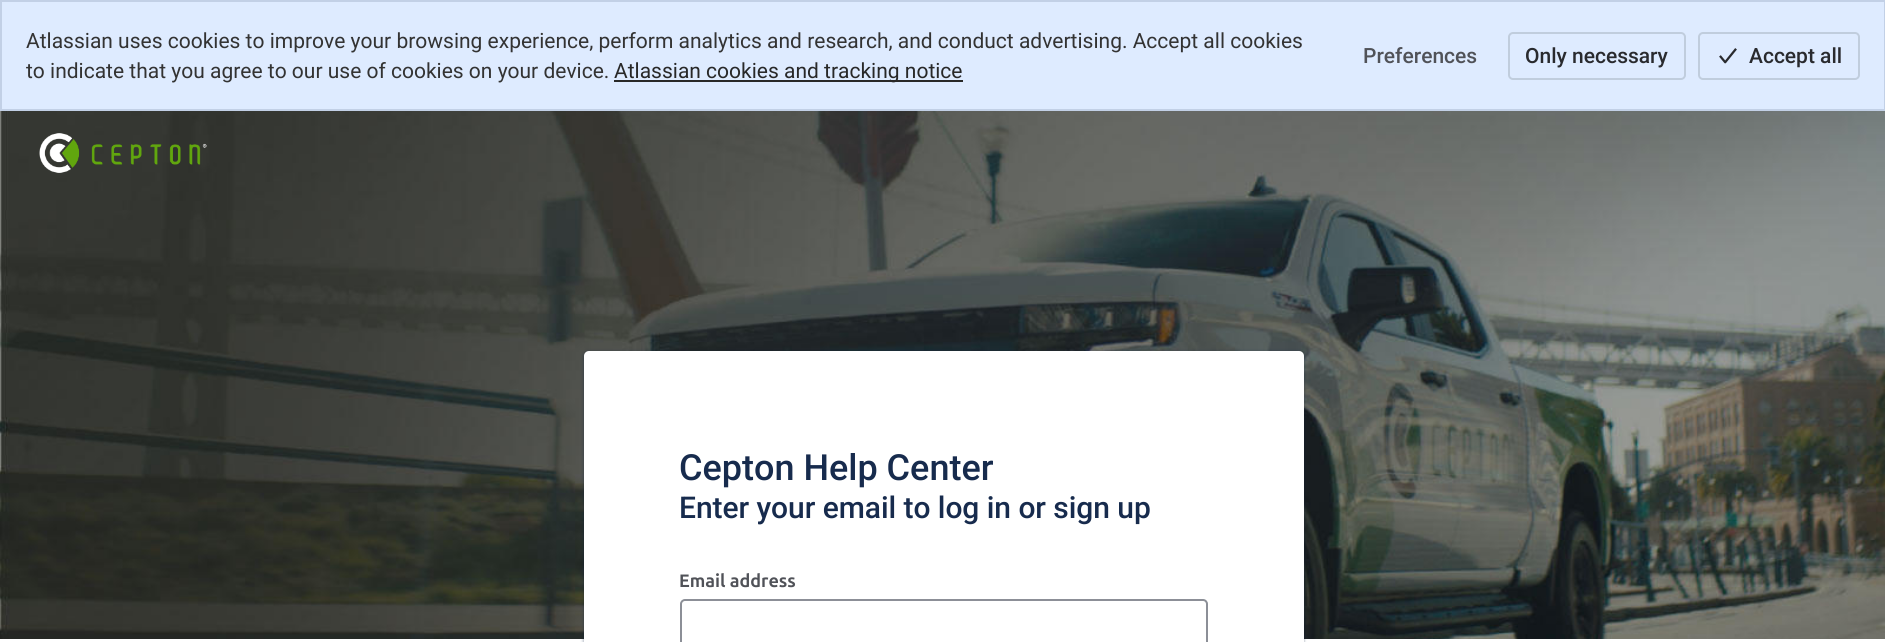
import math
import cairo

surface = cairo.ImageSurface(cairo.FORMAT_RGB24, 1885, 642)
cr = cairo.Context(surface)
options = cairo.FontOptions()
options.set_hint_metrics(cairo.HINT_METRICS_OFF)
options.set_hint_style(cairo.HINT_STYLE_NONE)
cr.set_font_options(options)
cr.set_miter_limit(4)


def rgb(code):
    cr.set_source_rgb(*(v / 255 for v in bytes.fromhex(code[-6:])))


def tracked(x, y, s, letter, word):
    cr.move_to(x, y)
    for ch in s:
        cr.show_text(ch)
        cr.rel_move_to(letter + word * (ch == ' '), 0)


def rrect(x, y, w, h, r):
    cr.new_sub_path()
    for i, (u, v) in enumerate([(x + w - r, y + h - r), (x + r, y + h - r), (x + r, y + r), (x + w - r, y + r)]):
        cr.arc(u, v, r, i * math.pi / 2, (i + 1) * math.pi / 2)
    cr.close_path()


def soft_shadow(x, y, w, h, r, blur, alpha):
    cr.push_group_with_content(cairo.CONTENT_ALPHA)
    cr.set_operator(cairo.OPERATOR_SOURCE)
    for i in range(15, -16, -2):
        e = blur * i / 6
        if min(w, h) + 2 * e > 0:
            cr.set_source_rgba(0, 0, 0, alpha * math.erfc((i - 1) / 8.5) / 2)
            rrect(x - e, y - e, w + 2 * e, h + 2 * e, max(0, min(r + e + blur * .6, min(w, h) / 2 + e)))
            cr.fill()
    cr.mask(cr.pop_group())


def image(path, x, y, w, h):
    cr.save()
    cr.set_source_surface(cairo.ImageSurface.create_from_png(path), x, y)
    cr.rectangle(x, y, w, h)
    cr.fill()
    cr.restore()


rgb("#ffffff")
cr.paint()
rgb("#deebff")
cr.rectangle(1, 1, 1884, 109)
cr.fill_preserve()
rgb("#c2d0e6")
cr.stroke()
rgb("#282828")
cr.rectangle(614, 80, 349, 2)
cr.fill()
rrect(1509, 33, 176, 46, 4)
rgb("#c0cddd")
cr.stroke()
image("img/1.png", 1719, 48, 18, 16)
rrect(1699, 33, 160, 46, 4)
cr.stroke()
image("img/2.png", 0, 111, 1885, 528)
image("img/3.png", 39, 133, 168, 40)
rgb("#091e42")
soft_shadow(582, 350, 723, 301, 6, 1, 0.13)
soft_shadow(584, 353, 720, 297, 5, 1, 0.25)
rgb("#ffffff")
rrect(584, 351, 720, 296, 5)
cr.fill()
rrect(681, 600, 526, 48, 4)
rgb("#8c8f97")
cr.stroke()
cr.select_font_face("Roboto")
cr.set_font_size(21)
rgb("#333333")
cr.move_to(26, 48)
cr.show_text("Atlassian uses cookies to improve your browsing experience, perform analytics and research, and conduct advertising. Accept all cookies")
cr.move_to(26, 78)
cr.show_text("to indicate that you agree to our use of cookies on your device.")
rgb("#282828")
cr.move_to(614, 78)
cr.show_text("Atlassian cookies and tracking notice")
cr.select_font_face("Roboto Medium")
rgb("#505258")
cr.move_to(1363, 63)
cr.show_text("Preferences")
rgb("#292a2e")
cr.move_to(1525, 63)
cr.show_text("Only necessary")
cr.move_to(1749, 63)
cr.show_text("Accept all")
cr.set_font_size(36)
rgb("#172b4d")
cr.move_to(679, 480)
cr.show_text("Cepton Help Center")
cr.set_font_size(30)
tracked(679, 518, "Enter your email to log in or sign up", -0.05, 0)
cr.select_font_face("Ubuntu", cairo.FONT_SLANT_NORMAL, cairo.FONT_WEIGHT_BOLD)
cr.set_font_size(18)
rgb("#505258")
cr.move_to(679, 587)
cr.show_text("Email address")
surface.write_to_png("page.png")
